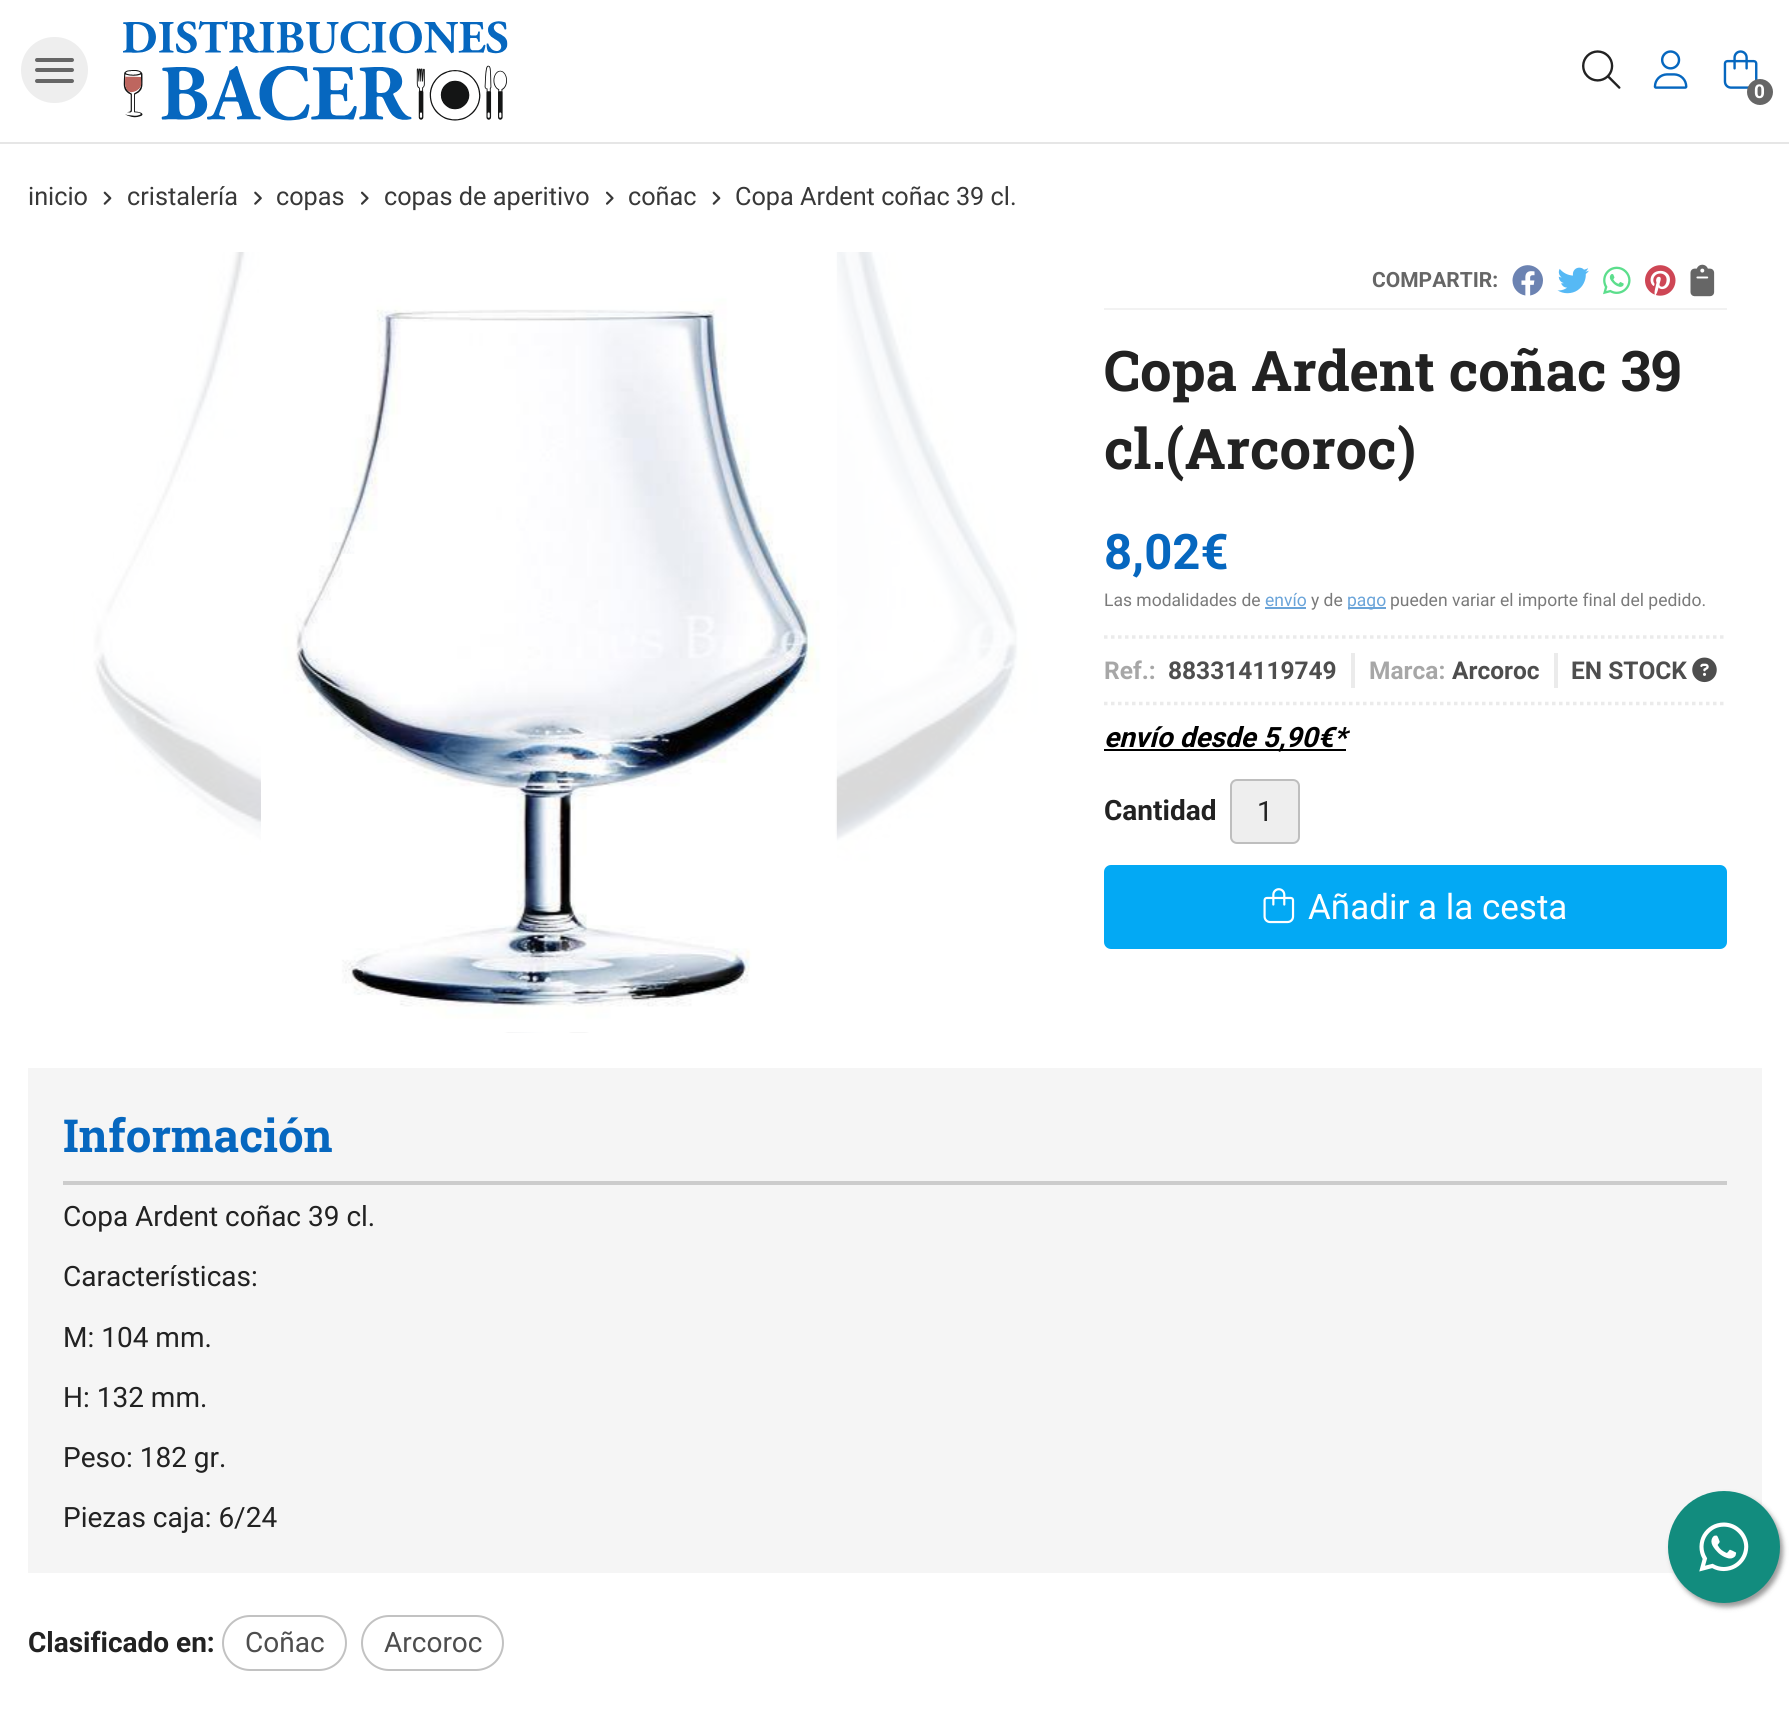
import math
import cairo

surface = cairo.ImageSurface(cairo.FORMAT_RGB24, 1789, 1710)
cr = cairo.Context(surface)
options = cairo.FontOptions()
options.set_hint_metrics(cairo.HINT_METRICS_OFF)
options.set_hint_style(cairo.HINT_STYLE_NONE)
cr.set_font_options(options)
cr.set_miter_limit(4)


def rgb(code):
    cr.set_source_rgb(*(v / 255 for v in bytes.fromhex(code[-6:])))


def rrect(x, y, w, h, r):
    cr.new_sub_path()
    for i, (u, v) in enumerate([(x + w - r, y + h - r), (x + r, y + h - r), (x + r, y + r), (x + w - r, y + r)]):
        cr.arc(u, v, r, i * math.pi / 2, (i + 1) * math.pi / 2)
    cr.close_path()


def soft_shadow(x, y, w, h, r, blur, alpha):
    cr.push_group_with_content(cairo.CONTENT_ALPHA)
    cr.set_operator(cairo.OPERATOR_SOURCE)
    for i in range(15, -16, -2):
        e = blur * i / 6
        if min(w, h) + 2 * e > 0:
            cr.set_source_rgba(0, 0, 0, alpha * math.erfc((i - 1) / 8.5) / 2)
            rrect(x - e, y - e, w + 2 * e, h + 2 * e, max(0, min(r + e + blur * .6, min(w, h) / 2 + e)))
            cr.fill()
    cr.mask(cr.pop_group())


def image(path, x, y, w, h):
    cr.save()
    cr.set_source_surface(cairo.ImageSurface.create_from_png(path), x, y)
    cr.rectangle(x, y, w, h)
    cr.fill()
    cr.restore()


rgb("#ffffff")
cr.paint()
rgb("#e6e6e6")
cr.rectangle(0, 142, 1789, 2)
cr.fill()
rgb("#eeeeee")
rrect(21, 37, 67, 66, 33)
cr.fill()
rgb("#666666")
rrect(35, 58, 39, 4, 2)
cr.fill()
rrect(35, 68, 39, 4, 2)
cr.fill()
rrect(35, 79, 39, 4, 2)
cr.fill()
image("img/1.png", 123, 21, 385, 100)
image("img/2.png", 1582, 50, 39, 39)
image("img/3.png", 1653, 50, 35, 39)
image("img/4.png", 1723, 50, 35, 39)
cr.arc(1760, 92, 13, 0, 2 * math.pi)
cr.fill()
image("img/5.png", 103, 191, 9, 14)
image("img/6.png", 254, 191, 8, 14)
image("img/7.png", 361, 191, 8, 14)
image("img/7.png", 606, 191, 8, 14)
image("img/5.png", 712, 191, 9, 14)
image("img/8.png", 28, 252, 1041, 781)
image("img/9.png", 261, 252, 576, 781)
rgb("#f2f2f2")
cr.rectangle(1104, 308, 623, 2)
cr.fill()
image("img/10.png", 1512, 265, 31, 31)
image("img/11.png", 1557, 267, 32, 27)
image("img/12.png", 1603, 266, 28, 29)
image("img/13.png", 1645, 265, 31, 31)
image("img/14.png", 1690, 264, 25, 33)
rgb("#6aa4d9")
cr.rectangle(1265, 607, 41, 2)
cr.fill()
cr.rectangle(1348, 607, 38, 2)
cr.fill()
cr.new_path()
cr.move_to(1104, 637)
cr.line_to(1727, 637)
rgb("#ebebeb")
cr.set_line_width(3.5)
cr.set_dash([3.5, 3.5])
cr.stroke()
cr.new_path()
cr.move_to(1104, 703.5)
cr.line_to(1727, 703.5)
cr.stroke()
cr.rectangle(1351, 653, 4, 35)
cr.fill()
cr.rectangle(1554, 653, 4, 35)
cr.fill()
image("img/15.png", 1692, 657, 25, 26)
rgb("#000000")
cr.rectangle(1104, 749, 214, 2)
cr.fill()
cr.rectangle(1318, 749, 28, 2)
cr.fill()
rgb("#eeeeee")
rrect(1230, 779, 70, 65, 7)
cr.fill()
rrect(1231, 780, 68, 63, 6)
cr.set_source_rgba(0, 0, 0, 0.2)
cr.set_line_width(2)
cr.set_dash([])
cr.stroke()
rgb("#03a9f4")
rrect(1104, 865, 623, 84, 7)
cr.fill()
image("img/16.png", 1263, 888, 32, 36)
rgb("#f5f5f5")
cr.rectangle(28, 1068, 1734, 505)
cr.fill()
rgb("#cccccc")
cr.rectangle(63, 1181, 1664, 4)
cr.fill()
rrect(223, 1616, 123, 54, 27)
rgb("#c2c2c2")
cr.stroke()
rrect(362, 1616, 141, 54, 27)
cr.stroke()
rgb("#000000")
soft_shadow(1671, 1495, 112, 112, 56, 2.5, 0.4)
rgb("#128c7e")
cr.arc(1724, 1547, 56, 0, 2 * math.pi)
cr.fill()
image("img/17.png", 1699, 1522, 50, 50)
cr.select_font_face("Roboto", cairo.FONT_SLANT_NORMAL, cairo.FONT_WEIGHT_BOLD)
cr.set_font_size(19)
rgb("#ffffff")
cr.move_to(1754, 98)
cr.show_text("0")
cr.select_font_face("Roboto")
cr.set_font_size(25.25)
rgb("#383838")
for x, y, s in [
    (28, 205, "inicio"),
    (127, 205, "cristalería"),
    (276, 205, "copas"),
    (384, 205, "copas de aperitivo"),
    (628, 205, "coñac"),
    (735, 205, "Copa Ardent coñac 39 cl."),
]:
    cr.move_to(x, y)
    cr.show_text(s)
cr.select_font_face("Roboto", cairo.FONT_SLANT_NORMAL, cairo.FONT_WEIGHT_BOLD)
cr.set_font_size(21)
rgb("#666666")
cr.move_to(1372, 287)
cr.show_text("COMPARTIR:")
cr.select_font_face("Roboto Slab", cairo.FONT_SLANT_NORMAL, cairo.FONT_WEIGHT_BOLD)
cr.set_font_size(56)
rgb("#222222")
cr.move_to(1104, 391)
cr.show_text("Copa Ardent coñac 39")
cr.move_to(1104, 469)
cr.show_text("cl.(Arcoroc)")
cr.select_font_face("Roboto", cairo.FONT_SLANT_NORMAL, cairo.FONT_WEIGHT_BOLD)
cr.set_font_size(49)
rgb("#0667bf")
cr.move_to(1104, 569)
cr.show_text("8,02€")
cr.select_font_face("Roboto")
cr.set_font_size(17.5)
rgb("#7a7a7a")
cr.move_to(1104, 606)
cr.show_text("Las modalidades de")
rgb("#6aa4d9")
cr.move_to(1265, 606)
cr.show_text("envío")
rgb("#7a7a7a")
cr.move_to(1311, 606)
cr.show_text("y de")
rgb("#6aa4d9")
cr.move_to(1347, 606)
cr.show_text("pago")
rgb("#7a7a7a")
cr.move_to(1390, 606)
cr.show_text("pueden variar el importe final del pedido.")
cr.select_font_face("Roboto", cairo.FONT_SLANT_NORMAL, cairo.FONT_WEIGHT_BOLD)
cr.set_font_size(24.5)
rgb("#a7a7a7")
cr.move_to(1104, 679)
cr.show_text("Ref.:")
rgb("#4e4e4e")
cr.move_to(1168, 679)
cr.show_text("883314119749")
rgb("#a7a7a7")
cr.move_to(1369, 679)
cr.show_text("Marca:")
rgb("#4e4e4e")
cr.move_to(1452, 679)
cr.show_text("Arcoroc")
cr.move_to(1571, 679)
cr.show_text("EN STOCK")
cr.select_font_face("Roboto", cairo.FONT_SLANT_ITALIC, cairo.FONT_WEIGHT_BOLD)
cr.set_font_size(28)
rgb("#000000")
cr.move_to(1104, 747)
cr.show_text("envío desde 5,90€*")
cr.select_font_face("Roboto", cairo.FONT_SLANT_NORMAL, cairo.FONT_WEIGHT_BOLD)
rgb("#222222")
cr.move_to(1104, 820)
cr.show_text("Cantidad")
cr.select_font_face("Roboto")
cr.move_to(1257, 821)
cr.show_text("1")
cr.set_font_size(35)
rgb("#ffffff")
cr.move_to(1308, 919)
cr.show_text("Añadir a la cesta")
cr.select_font_face("Roboto Slab", cairo.FONT_SLANT_NORMAL, cairo.FONT_WEIGHT_BOLD)
cr.set_font_size(45.5)
rgb("#0667bf")
cr.move_to(63, 1152)
cr.show_text("Información")
cr.select_font_face("Roboto")
cr.set_font_size(28)
rgb("#222222")
for x, y, s in [
    (63, 1226, "Copa Ardent coñac 39 cl."),
    (63, 1286, "Características:"),
    (63, 1347, "M: 104 mm."),
    (63, 1407, "H: 132 mm."),
    (63, 1467, "Peso: 182 gr."),
    (63, 1527, "Piezas caja: 6/24"),
]:
    cr.move_to(x, y)
    cr.show_text(s)
cr.select_font_face("Roboto", cairo.FONT_SLANT_NORMAL, cairo.FONT_WEIGHT_BOLD)
cr.move_to(28, 1652)
cr.show_text("Clasificado en:")
cr.select_font_face("Roboto")
rgb("#4e4e4e")
cr.move_to(245, 1652)
cr.show_text("Coñac")
cr.move_to(384, 1652)
cr.show_text("Arcoroc")
surface.write_to_png("page.png")
